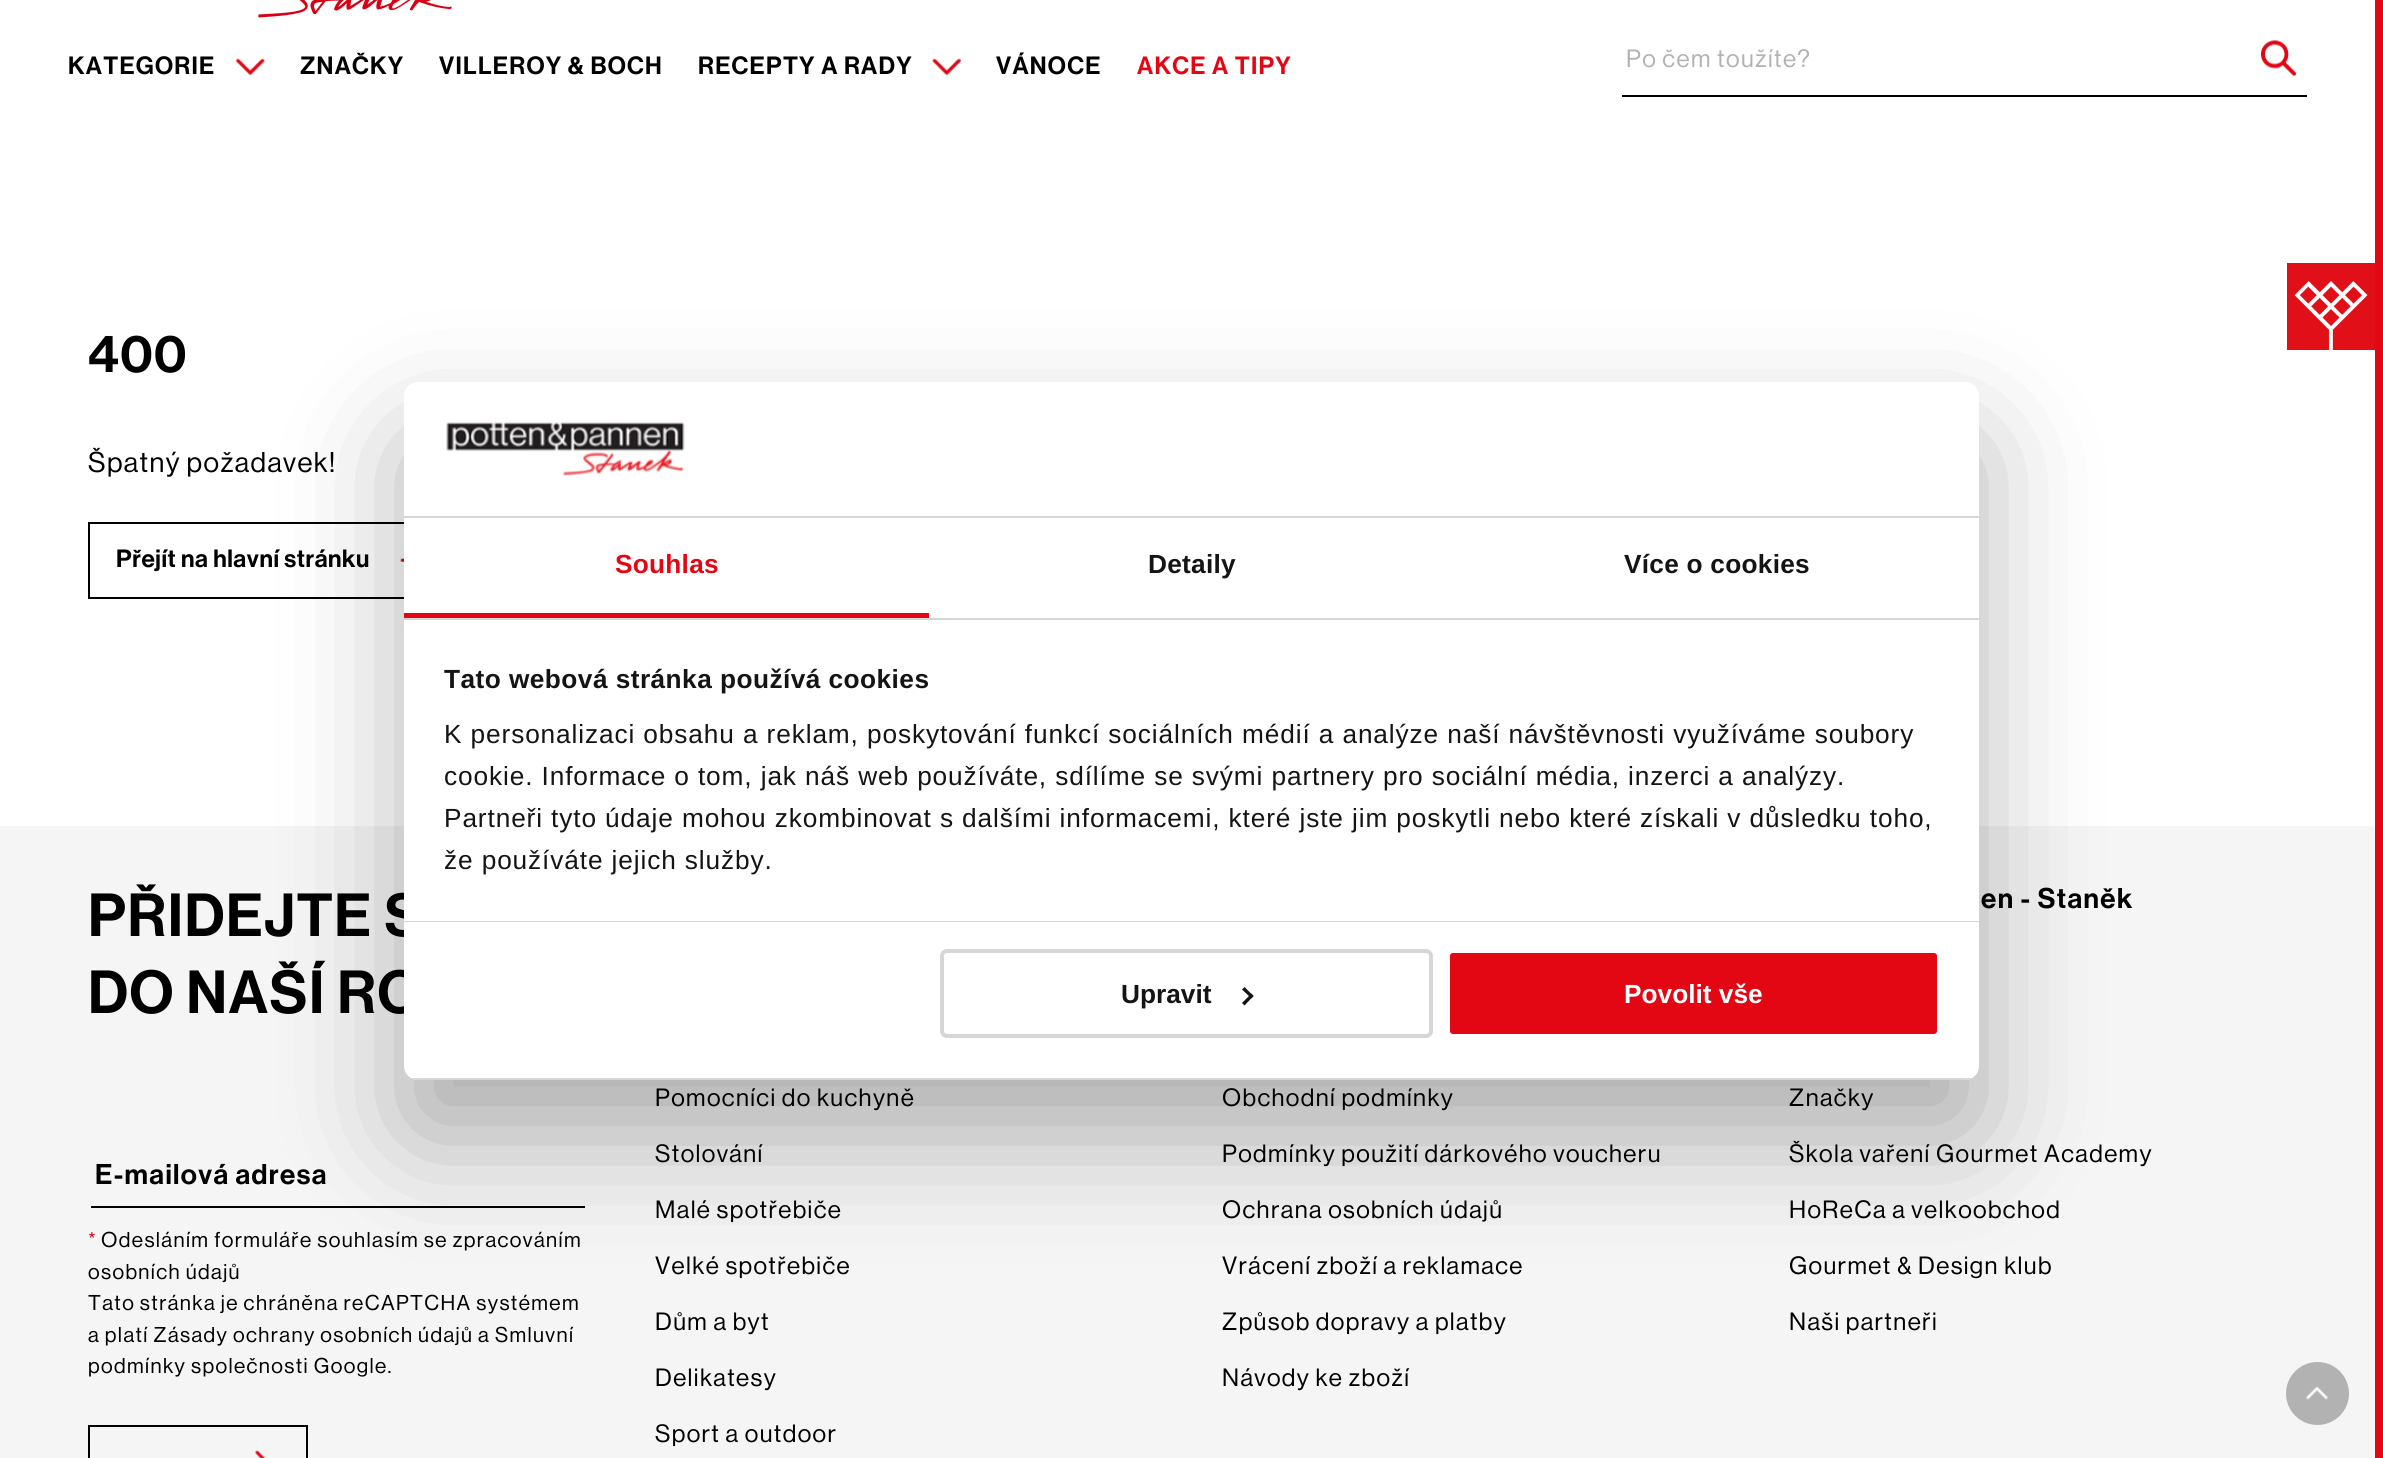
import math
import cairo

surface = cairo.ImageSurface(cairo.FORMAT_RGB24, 2383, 1458)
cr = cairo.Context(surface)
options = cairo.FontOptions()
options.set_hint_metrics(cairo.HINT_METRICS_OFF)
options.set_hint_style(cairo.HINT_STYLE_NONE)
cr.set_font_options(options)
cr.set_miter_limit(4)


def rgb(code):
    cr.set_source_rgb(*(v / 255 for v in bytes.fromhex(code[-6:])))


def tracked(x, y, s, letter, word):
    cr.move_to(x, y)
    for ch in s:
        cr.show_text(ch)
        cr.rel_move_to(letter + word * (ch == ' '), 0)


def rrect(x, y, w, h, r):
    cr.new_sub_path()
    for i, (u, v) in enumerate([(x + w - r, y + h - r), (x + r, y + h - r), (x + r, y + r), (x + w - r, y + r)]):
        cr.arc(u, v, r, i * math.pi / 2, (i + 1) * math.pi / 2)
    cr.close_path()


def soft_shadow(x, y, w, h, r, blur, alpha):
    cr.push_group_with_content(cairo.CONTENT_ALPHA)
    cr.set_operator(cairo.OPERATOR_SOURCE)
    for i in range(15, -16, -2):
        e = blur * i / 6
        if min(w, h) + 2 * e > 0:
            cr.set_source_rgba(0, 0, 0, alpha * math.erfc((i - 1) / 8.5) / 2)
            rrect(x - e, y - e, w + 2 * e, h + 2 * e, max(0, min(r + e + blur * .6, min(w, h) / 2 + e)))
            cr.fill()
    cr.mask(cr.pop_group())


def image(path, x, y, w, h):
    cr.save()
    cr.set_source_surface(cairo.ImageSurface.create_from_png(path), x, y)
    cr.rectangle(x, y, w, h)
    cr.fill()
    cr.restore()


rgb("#ffffff")
cr.paint()
image("img/1.png", 258, 0, 194, 18)
image("img/2.png", 236, 58, 29, 17)
image("img/3.png", 932, 58, 29, 17)
rgb("#000000")
cr.rectangle(1622, 95, 685, 2)
cr.fill()
image("img/4.png", 2261, 40, 35, 36)
rgb("#e30613")
cr.rectangle(2375, 0, 8, 1458)
cr.fill()
image("img/5.png", 2287, 263, 88, 87)
cr.rectangle(89, 523, 384, 75)
rgb("#000000")
cr.stroke()
image("img/6.png", 400, 558, 4, 4)
rgb("#f5f5f5")
cr.rectangle(0, 826, 2375, 632)
cr.fill()
rgb("#000000")
cr.rectangle(91, 1206, 494, 2)
cr.fill()
rgb("#000000")
soft_shadow(404, 438, 1575, 698, 14, 59.5, 0.3)
cr.rectangle(89, 1426, 218, 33)
rgb("#000000")
cr.stroke()
image("img/8.png", 255, 1450, 11, 8)
rgb("#b2b2b2")
cr.arc(2317.5, 1393.5, 31.5, 0, 2 * math.pi)
cr.fill()
image("img/9.png", 2306, 1386, 22, 14)
cr.select_font_face("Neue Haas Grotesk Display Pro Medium")
cr.set_font_size(24.5)
rgb("#000000")
for x, y, s in [
    (68, 74, "KATEGORIE"),
    (300, 74, "ZNAČKY"),
    (439, 74, "VILLEROY & BOCH"),
    (698, 74, "RECEPTY A RADY"),
    (996, 74, "VÁNOCE"),
]:
    tracked(x, y, s, 1.25, 0)
rgb("#e30613")
tracked(1137, 74, "AKCE A TIPY", 1.25, 0)
cr.select_font_face("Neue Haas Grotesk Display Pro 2 Medium")
rgb("#b2b2b2")
tracked(1626, 67, "Po čem toužíte?", 1.4, 0)
cr.select_font_face("Neue Haas Grotesk Display Pro Medium")
cr.set_font_size(52)
rgb("#000000")
tracked(88, 372, "400", 1, 0)
cr.select_font_face("Neue Haas Grotesk Display Pro 2 Medium")
cr.set_font_size(28)
tracked(88, 472, "Špatný požadavek!", 1.4, 0)
cr.select_font_face("Neue Haas Grotesk Display Pro Medium")
cr.set_font_size(24.5)
tracked(116, 567, "Přejít na hlavní stránku", 0.6, 0)
cr.set_font_size(59.5)
tracked(88, 936, "PŘIDEJTE S", 1.5, 0)
tracked(88, 1013, "DO NAŠÍ RO", 1.5, 0)
rgb("#ffffff")
rrect(404, 382, 1575, 698, 14)
cr.fill()
rrect(942, 951, 489, 85, 5)
rgb("#d6d6d6")
cr.set_line_width(4)
cr.stroke()
rgb("#141414")
cr.new_path()
cr.move_to(1244.5, 987)
cr.line_to(1253.5, 996)
cr.line_to(1251.5, 998.5)
cr.line_to(1242, 989.5)
cr.close_path()
cr.fill()
cr.new_path()
cr.move_to(1251.5, 993.5)
cr.line_to(1253.5, 996)
cr.line_to(1244.5, 1005.5)
cr.line_to(1242, 1003)
cr.close_path()
cr.fill()
rgb("#e30613")
rrect(1448, 951, 491, 85, 5)
cr.fill_preserve()
rgb("#ffffff")
cr.stroke()
cr.select_font_face("Liberation Sans", cairo.FONT_SLANT_NORMAL, cairo.FONT_WEIGHT_BOLD)
cr.set_font_size(26.25)
cr.move_to(1624, 1003)
cr.show_text("Povolit vše")
rgb("#141414")
cr.move_to(1121, 1003)
cr.show_text("Upravit")
cr.save()
rrect(404, 382, 1575, 698, 14)
cr.clip()
rgb("#d6d6d6")
cr.rectangle(404, 1078, 1575, 2)
cr.fill()
cr.restore()
cr.select_font_face("Liberation Sans")
for x, y, s in [
    (444, 869, "že používáte jejich služby."),
    (444, 827, "Partneři tyto údaje mohou zkombinovat s dalšími informacemi, které jste jim poskytli nebo které získali v důsledku toho,"),
    (444, 785, "cookie. Informace o tom, jak náš web používáte, sdílíme se svými partnery pro sociální média, inzerci a analýzy."),
    (444, 743, "K personalizaci obsahu a reklam, poskytování funkcí sociálních médií a analýze naší návštěvnosti využíváme soubory"),
]:
    tracked(x, y, s, 0.88, 0)
cr.select_font_face("Liberation Sans", cairo.FONT_SLANT_NORMAL, cairo.FONT_WEIGHT_BOLD)
tracked(444, 688, "Tato webová stránka používá cookies", 0.45, 0)
rgb("#d6d6d6")
cr.rectangle(404, 921, 1575, 1)
cr.fill()
rgb("#141414")
tracked(1624, 573, "Více o cookies", 0.25, 0)
tracked(1148, 573, "Detaily", 0.25, 0)
rgb("#e30613")
tracked(615, 573, "Souhlas", 0.25, 0)
cr.rectangle(404, 613, 525, 5)
cr.fill()
rgb("#d6d6d6")
cr.rectangle(404, 618, 1575, 2)
cr.fill()
image("img/7.png", 446, 422, 239, 54)
cr.rectangle(404, 516, 1575, 2)
cr.fill()
cr.select_font_face("Neue Haas Grotesk Display Pro Medium")
cr.set_font_size(28)
rgb("#000000")
tracked(95, 1184, "E-mailová adresa", 1.4, 0)
cr.select_font_face("Neue Haas Grotesk Display Pro 2 Medium")
cr.set_font_size(21)
rgb("#e30613")
tracked(88, 1247, "*", 1.4, 0)
rgb("#000000")
for x, y, s in [
    (101, 1247, "Odesláním formuláře souhlasím se zpracováním"),
    (88, 1279, "osobních údajů"),
    (88, 1310, "Tato stránka je chráněna reCAPTCHA systémem"),
    (88, 1342, "a platí Zásady ochrany osobních údajů a Smluvní"),
    (88, 1373, "podmínky společnosti Google."),
]:
    tracked(x, y, s, 1.4, 0)
cr.set_font_size(24.5)
for x, y, s in [
    (655, 1106, "Pomocníci do kuchyně"),
    (655, 1162, "Stolování"),
    (655, 1218, "Malé spotřebiče"),
    (655, 1274, "Velké spotřebiče"),
    (655, 1330, "Dům a byt"),
    (655, 1386, "Delikatesy"),
    (655, 1442, "Sport a outdoor"),
    (1222, 1106, "Obchodní podmínky"),
    (1222, 1162, "Podmínky použití dárkového voucheru"),
    (1222, 1218, "Ochrana osobních údajů"),
    (1222, 1274, "Vrácení zboží a reklamace"),
    (1222, 1330, "Způsob dopravy a platby"),
    (1222, 1386, "Návody ke zboží"),
]:
    tracked(x, y, s, 1.4, 0)
cr.select_font_face("Neue Haas Grotesk Display Pro Medium")
cr.set_font_size(28)
tracked(1981, 908, "en - Staněk", 1.4, 0)
cr.select_font_face("Neue Haas Grotesk Display Pro 2 Medium")
cr.set_font_size(24.5)
for x, y, s in [
    (1789, 1106, "Značky"),
    (1789, 1162, "Škola vaření Gourmet Academy"),
    (1789, 1218, "HoReCa a velkoobchod"),
    (1789, 1274, "Gourmet & Design klub"),
    (1789, 1330, "Naši partneři"),
]:
    tracked(x, y, s, 1.4, 0)
surface.write_to_png("page.png")
